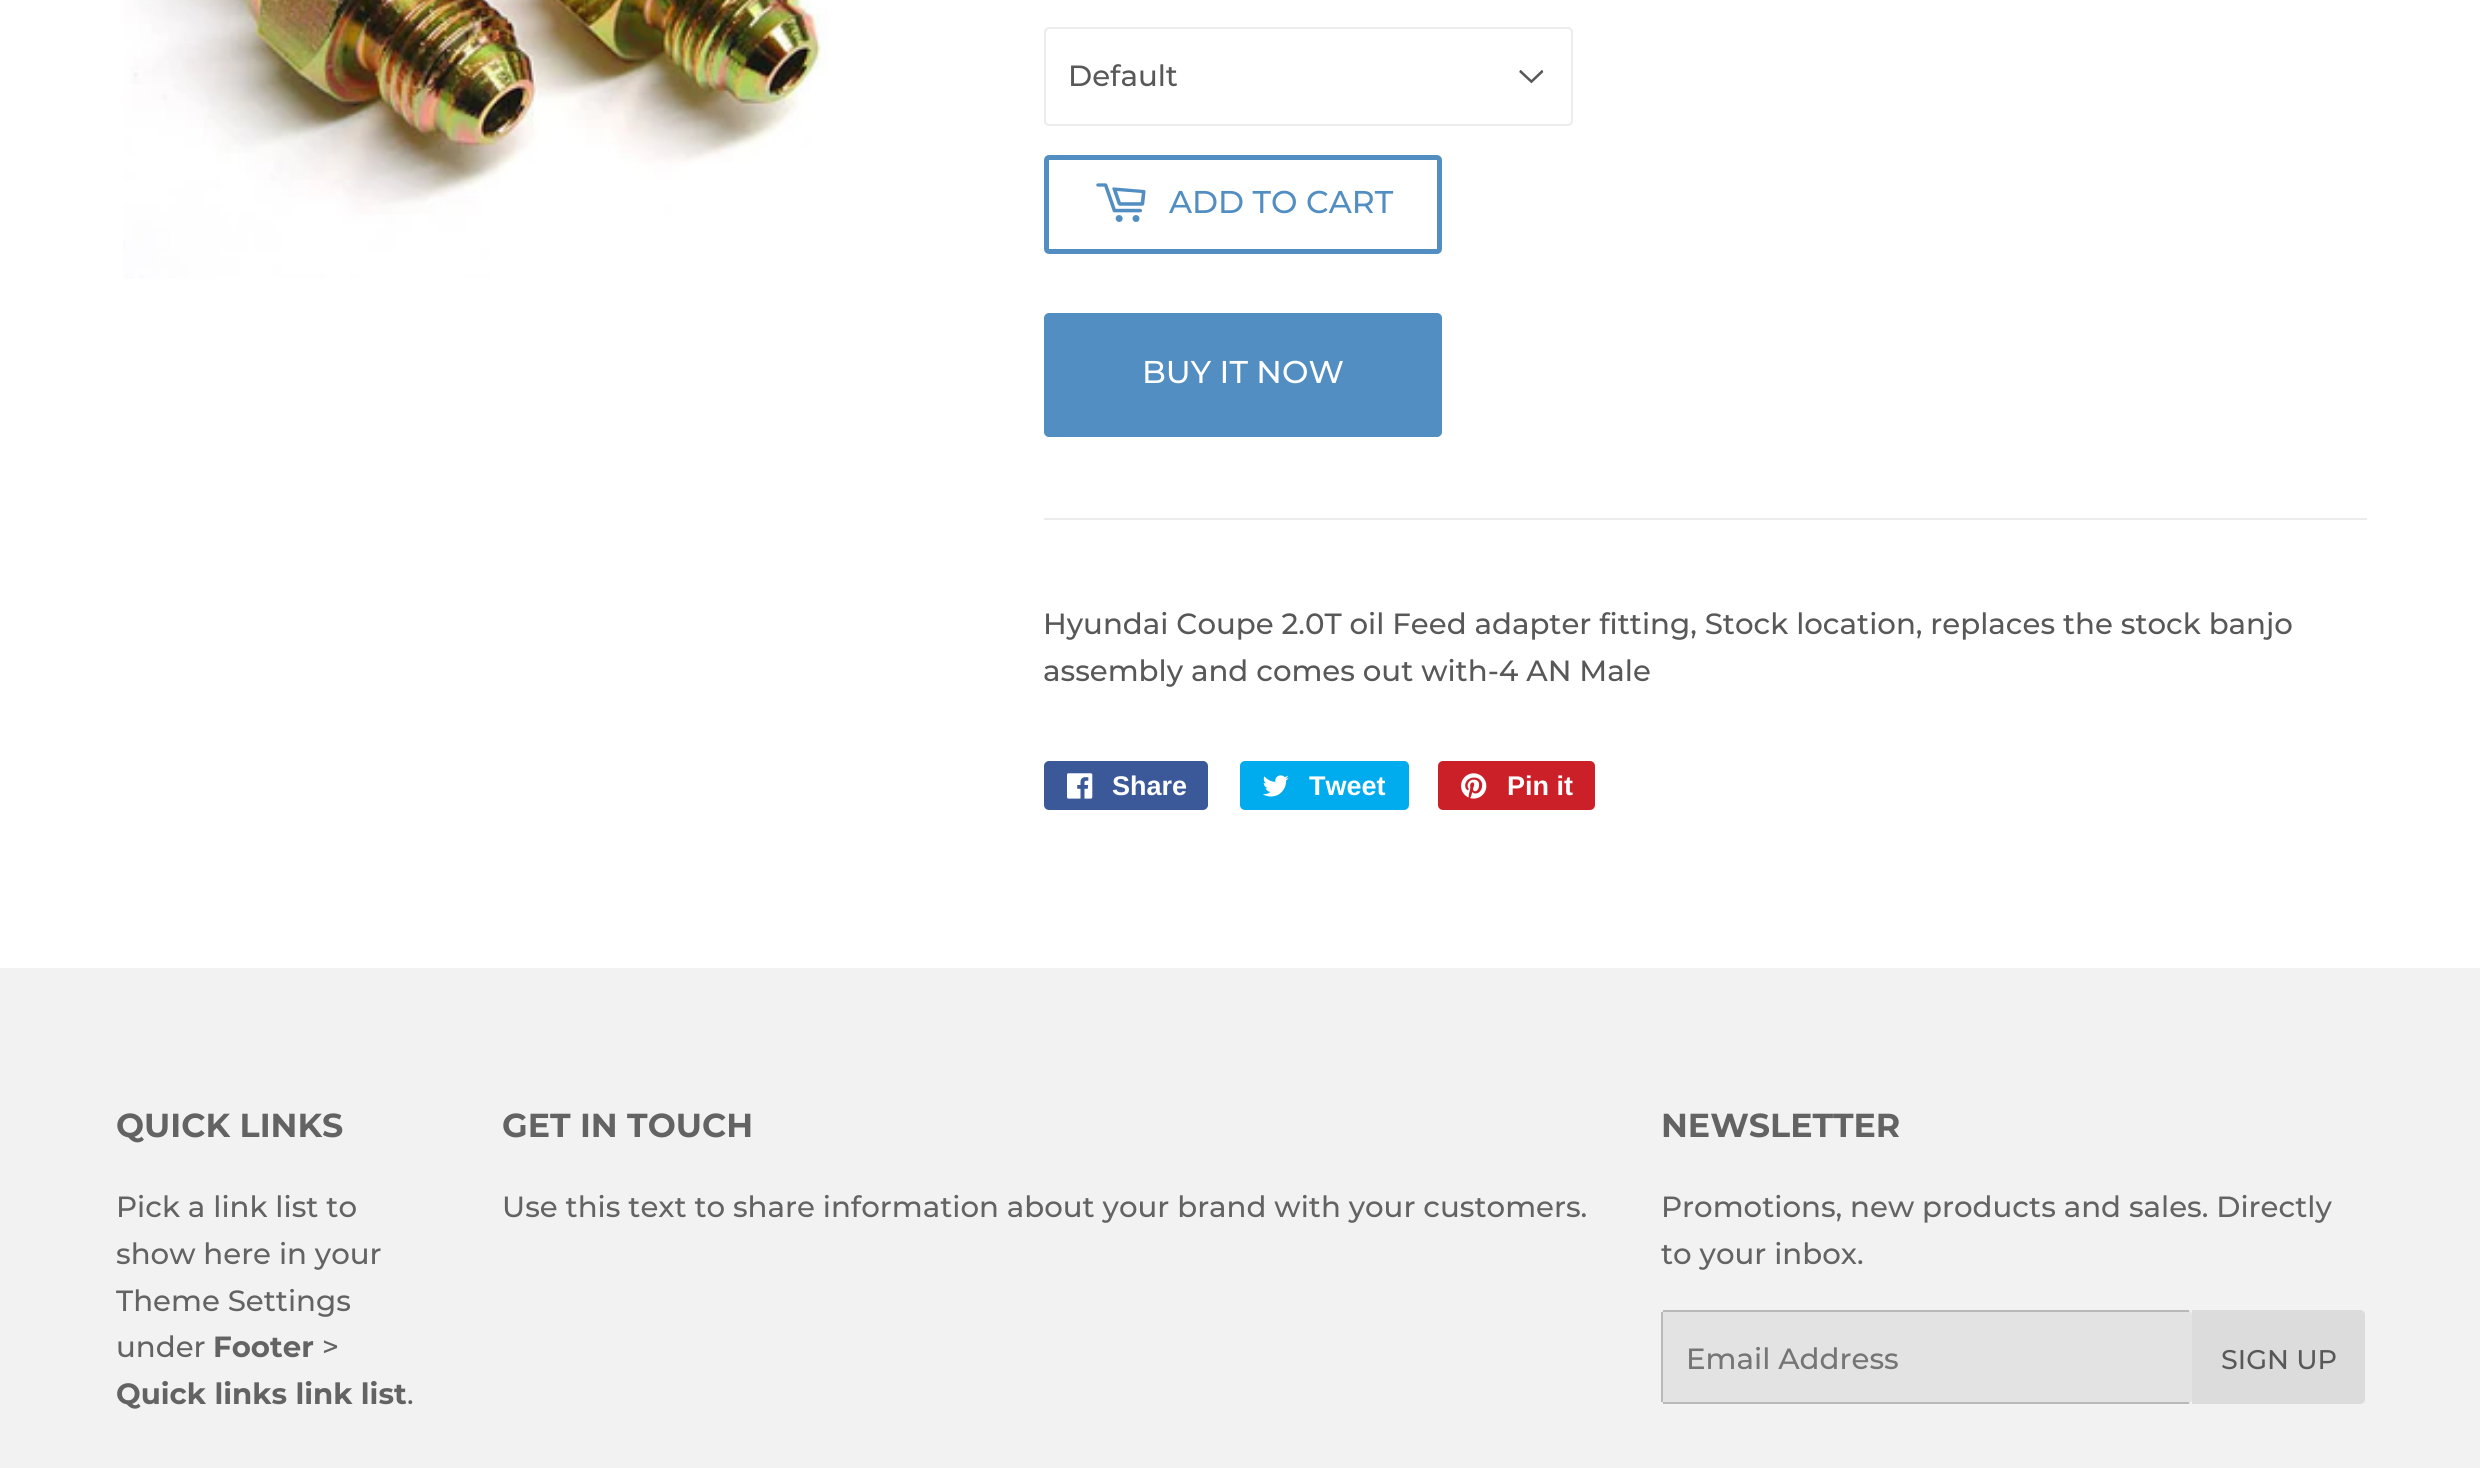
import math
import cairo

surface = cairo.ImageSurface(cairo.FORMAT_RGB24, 2480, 1468)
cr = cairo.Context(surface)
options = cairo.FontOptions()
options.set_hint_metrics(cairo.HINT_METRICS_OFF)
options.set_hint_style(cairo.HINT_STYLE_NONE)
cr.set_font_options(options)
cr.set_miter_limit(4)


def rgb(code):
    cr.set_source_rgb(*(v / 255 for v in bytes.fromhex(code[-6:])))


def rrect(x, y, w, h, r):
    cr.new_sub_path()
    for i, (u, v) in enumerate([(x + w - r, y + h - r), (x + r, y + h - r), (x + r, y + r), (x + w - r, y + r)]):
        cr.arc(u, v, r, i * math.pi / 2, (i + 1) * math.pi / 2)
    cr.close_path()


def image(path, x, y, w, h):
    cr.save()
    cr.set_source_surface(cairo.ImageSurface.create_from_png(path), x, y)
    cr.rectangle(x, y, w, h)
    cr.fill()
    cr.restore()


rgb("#ffffff")
cr.paint()
image("img/1.png", 123, 0, 705, 279)
image("img/2.png", 1519, 70, 25, 14)
rrect(1045, 28, 527, 97, 4)
rgb("#ececec")
cr.stroke()
rrect(1046.5, 157.5, 393, 94, 2.5)
rgb("#528ec1")
cr.set_line_width(5)
cr.stroke()
image("img/3.png", 1096, 183, 50, 39)
rrect(1044, 313, 398, 124, 5)
cr.fill()
rgb("#ececec")
cr.rectangle(1044, 518, 1323, 2)
cr.fill()
rgb("#3b5998")
rrect(1044, 761, 164, 49, 5)
cr.fill()
image("img/4.png", 1067, 773, 26, 26)
rgb("#00aced")
rrect(1240, 761, 169, 49, 5)
cr.fill()
image("img/5.png", 1263, 775, 26, 22)
rgb("#cb2027")
rrect(1438, 761, 157, 49, 5)
cr.fill()
image("img/6.png", 1461, 773, 26, 26)
rgb("#f2f2f2")
cr.rectangle(0, 968, 2480, 500)
cr.fill()
rgb("#e3e3e3")
rrect(1661, 1310, 531, 94, 5)
cr.fill()
for x, y, w, h, color in [
    (1663, 1310, 526, 2, "#b9b9b9"),
    (1663, 1402, 526, 2, "#b9b9b9"),
    (1661, 1312, 2, 90, "#b9b9b9"),
]:
    rgb(color)
    cr.rectangle(x, y, w, h)
    cr.fill()
rgb("#dcdcdc")
cr.new_path()
cr.move_to(2192, 1310)
cr.line_to(2360, 1310)
cr.curve_to(2363, 1310, 2365, 1312, 2365, 1315)
cr.line_to(2365, 1399)
cr.curve_to(2365, 1402, 2363, 1404, 2360, 1404)
cr.line_to(2192, 1404)
cr.close_path()
cr.fill()
cr.select_font_face("Montserrat Medium")
cr.set_font_size(29.25)
rgb("#585858")
cr.move_to(1068, 86)
cr.show_text("Default")
cr.set_font_size(31.5)
rgb("#528ec1")
cr.move_to(1169, 213)
cr.show_text("ADD TO CART")
rgb("#ffffff")
cr.move_to(1142, 383)
cr.show_text("BUY IT NOW")
cr.set_font_size(29.25)
rgb("#585858")
cr.move_to(1043, 634)
cr.show_text("Hyundai Coupe 2.0T oil Feed adapter fitting, Stock location, replaces the stock banjo")
cr.move_to(1043, 681)
cr.show_text("assembly and comes out with-4 AN Male")
cr.select_font_face("Liberation Sans", cairo.FONT_SLANT_NORMAL, cairo.FONT_WEIGHT_BOLD)
cr.set_font_size(27)
rgb("#ffffff")
for x, y, s in [
    (1112, 795, "Share"),
    (1309, 795, "Tweet"),
    (1507, 795, "Pin it"),
]:
    cr.move_to(x, y)
    cr.show_text(s)
cr.select_font_face("Montserrat", cairo.FONT_SLANT_NORMAL, cairo.FONT_WEIGHT_BOLD)
cr.set_font_size(33.25)
rgb("#636363")
cr.move_to(116, 1137)
cr.show_text("QUICK LINKS")
cr.select_font_face("Montserrat Medium")
cr.set_font_size(29.25)
for x, y, s in [
    (116, 1217, "Pick a link list to"),
    (116, 1264, "show here in your"),
    (116, 1311, "Theme Settings"),
    (116, 1357, "under"),
]:
    cr.move_to(x, y)
    cr.show_text(s)
cr.select_font_face("Montserrat", cairo.FONT_SLANT_NORMAL, cairo.FONT_WEIGHT_BOLD)
cr.move_to(213, 1357)
cr.show_text("Footer")
cr.select_font_face("Montserrat Medium")
cr.move_to(322, 1357)
cr.show_text(">")
cr.select_font_face("Montserrat", cairo.FONT_SLANT_NORMAL, cairo.FONT_WEIGHT_BOLD)
cr.move_to(116, 1404)
cr.show_text("Quick links link list")
cr.select_font_face("Montserrat Medium")
cr.move_to(407, 1404)
cr.show_text(".")
cr.select_font_face("Montserrat", cairo.FONT_SLANT_NORMAL, cairo.FONT_WEIGHT_BOLD)
cr.set_font_size(33.25)
cr.move_to(502, 1137)
cr.show_text("GET IN TOUCH")
cr.select_font_face("Montserrat Medium")
cr.set_font_size(29.25)
cr.move_to(502, 1217)
cr.show_text("Use this text to share information about your brand with your customers.")
cr.select_font_face("Montserrat", cairo.FONT_SLANT_NORMAL, cairo.FONT_WEIGHT_BOLD)
cr.set_font_size(33.25)
cr.move_to(1661, 1137)
cr.show_text("NEWSLETTER")
cr.select_font_face("Montserrat Medium")
cr.set_font_size(29.25)
cr.move_to(1661, 1217)
cr.show_text("Promotions, new products and sales. Directly")
cr.move_to(1661, 1264)
cr.show_text("to your inbox.")
rgb("#757575")
cr.move_to(1686, 1369)
cr.show_text("Email Address")
cr.set_font_size(27)
rgb("#585858")
cr.move_to(2221, 1369)
cr.show_text("SIGN UP")
surface.write_to_png("page.png")
